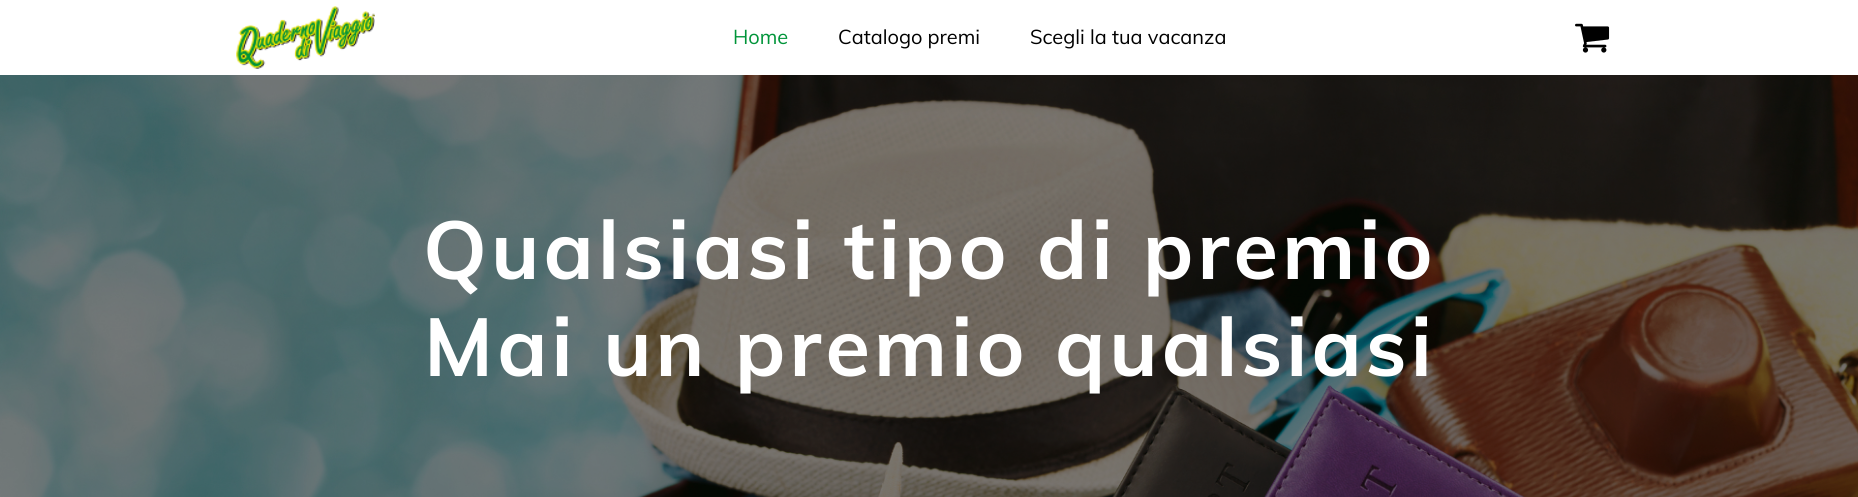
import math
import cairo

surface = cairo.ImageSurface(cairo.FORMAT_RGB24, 1858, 497)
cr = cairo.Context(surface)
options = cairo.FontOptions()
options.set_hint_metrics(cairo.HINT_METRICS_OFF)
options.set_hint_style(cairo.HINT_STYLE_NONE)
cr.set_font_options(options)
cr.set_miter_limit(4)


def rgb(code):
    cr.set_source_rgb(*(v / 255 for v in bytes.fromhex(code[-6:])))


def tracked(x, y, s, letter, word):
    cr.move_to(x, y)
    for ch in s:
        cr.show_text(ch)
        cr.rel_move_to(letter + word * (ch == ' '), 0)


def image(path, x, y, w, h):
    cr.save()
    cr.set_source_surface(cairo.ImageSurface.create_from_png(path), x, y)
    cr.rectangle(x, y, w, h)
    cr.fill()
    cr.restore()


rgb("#ffffff")
cr.paint()
image("img/1.png", 236, 6, 139, 63)
image("img/2.png", 1575, 23, 35, 30)
image("img/3.png", 0, 75, 1858, 422)
cr.select_font_face("Muli")
cr.set_font_size(20)
rgb("#009439")
cr.move_to(733, 44)
cr.show_text("Home")
rgb("#000000")
cr.move_to(838, 44)
cr.show_text("Catalogo premi")
cr.move_to(1030, 44)
cr.show_text("Scegli la tua vacanza")
cr.select_font_face("Muli", cairo.FONT_SLANT_NORMAL, cairo.FONT_WEIGHT_BOLD)
cr.set_font_size(81.25)
rgb("#ffffff")
tracked(423, 279, "Qualsiasi tipo di premio", 4.1, 0)
tracked(424, 376, "Mai un premio qualsiasi", 4.1, 0)
surface.write_to_png("page.png")
